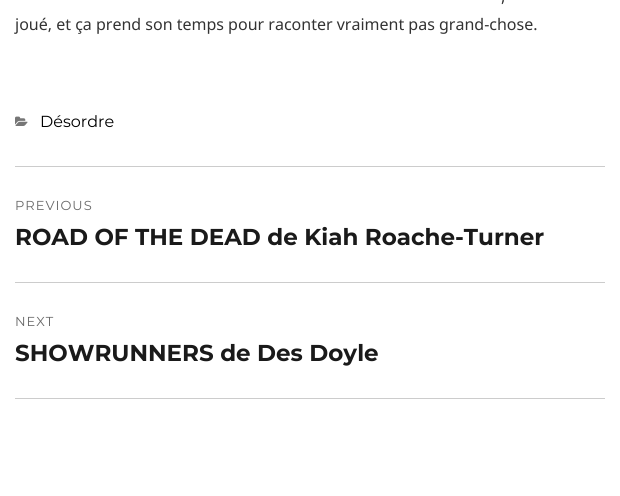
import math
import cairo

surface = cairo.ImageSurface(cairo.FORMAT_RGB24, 620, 496)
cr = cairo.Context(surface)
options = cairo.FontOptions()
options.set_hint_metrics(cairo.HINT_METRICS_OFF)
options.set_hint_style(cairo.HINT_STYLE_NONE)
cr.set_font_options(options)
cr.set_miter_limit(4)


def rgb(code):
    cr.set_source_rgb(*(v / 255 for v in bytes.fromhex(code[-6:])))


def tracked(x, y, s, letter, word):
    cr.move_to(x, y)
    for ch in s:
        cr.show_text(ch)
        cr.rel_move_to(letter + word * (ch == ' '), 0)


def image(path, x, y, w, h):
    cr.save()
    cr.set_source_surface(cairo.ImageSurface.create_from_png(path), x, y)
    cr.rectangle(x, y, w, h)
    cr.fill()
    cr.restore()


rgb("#ffffff")
cr.paint()
image("img/1.png", 15, 116, 13, 10)
for x, y, w, h, color in [
    (15, 166, 590, 1, "#cccccc"),
    (15, 398, 590, 1, "#cccccc"),
    (15, 282, 590, 1, "#cccccc"),
]:
    rgb(color)
    cr.rectangle(x, y, w, h)
    cr.fill()
cr.select_font_face("Noto Sans")
cr.set_font_size(16)
rgb("#333333")
cr.move_to(501, 2)
cr.show_text(",")
cr.move_to(15, 30)
cr.show_text("joué, et ça prend son temps pour raconter vraiment pas grand-chose.")
cr.select_font_face("Montserrat")
rgb("#000000")
cr.move_to(40, 127)
cr.show_text("Désordre")
cr.set_font_size(13)
rgb("#686868")
tracked(15, 210, "PREVIOUS", 1, 0)
cr.select_font_face("Montserrat", cairo.FONT_SLANT_NORMAL, cairo.FONT_WEIGHT_BOLD)
cr.set_font_size(23)
rgb("#1a1a1a")
cr.move_to(15, 245)
cr.show_text("ROAD OF THE DEAD de Kiah Roache-Turner")
cr.select_font_face("Montserrat")
cr.set_font_size(13)
rgb("#686868")
tracked(15, 326, "NEXT", 1, 0)
cr.select_font_face("Montserrat", cairo.FONT_SLANT_NORMAL, cairo.FONT_WEIGHT_BOLD)
cr.set_font_size(23)
rgb("#1a1a1a")
cr.move_to(15, 361)
cr.show_text("SHOWRUNNERS de Des Doyle")
surface.write_to_png("page.png")
